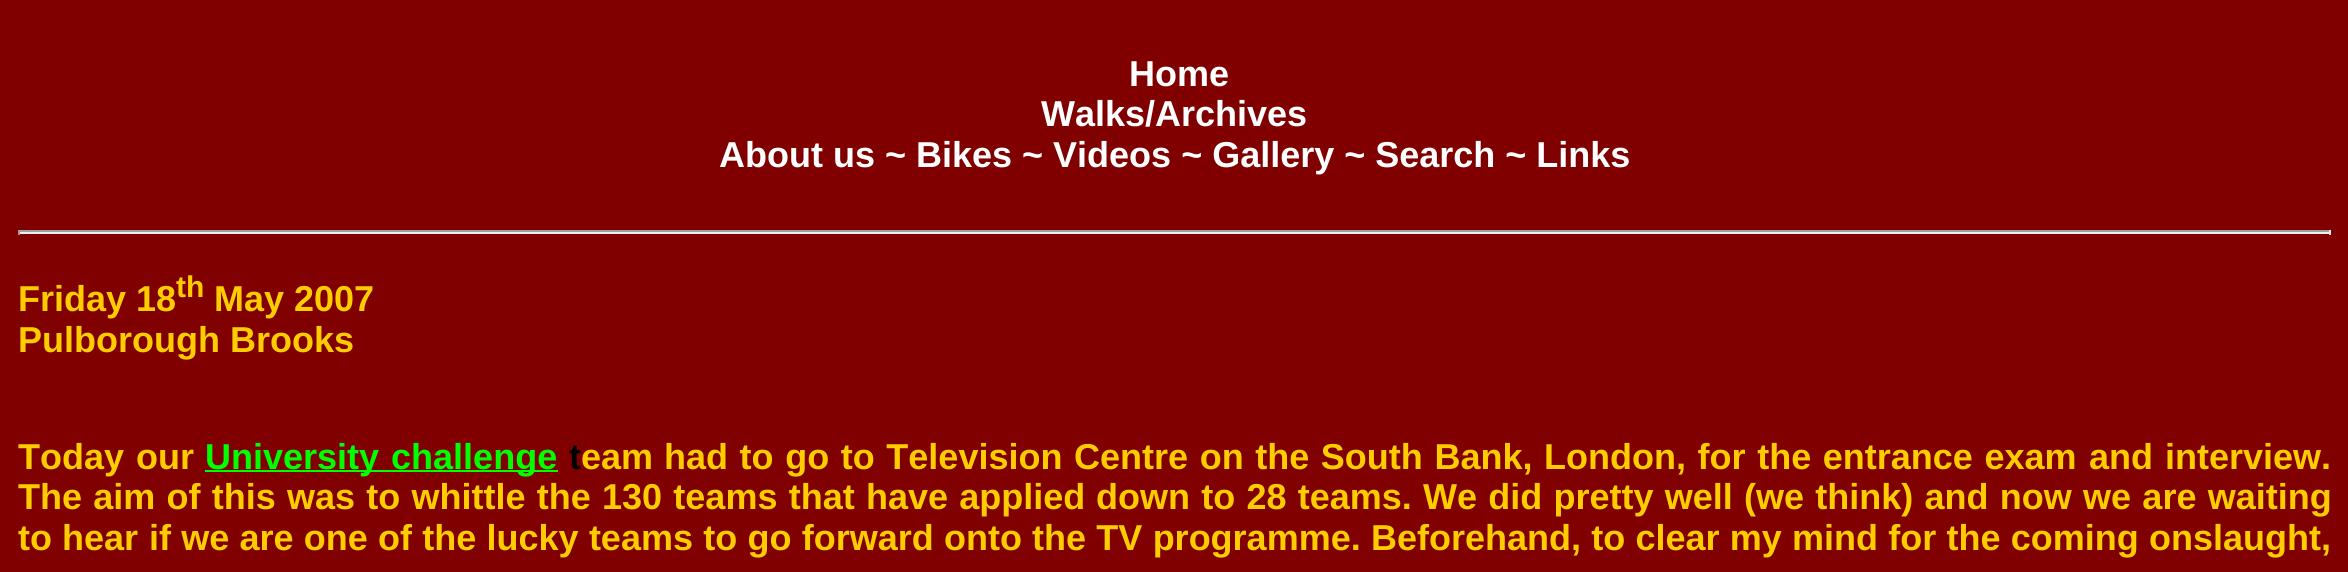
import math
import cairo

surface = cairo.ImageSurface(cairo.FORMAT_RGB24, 2348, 572)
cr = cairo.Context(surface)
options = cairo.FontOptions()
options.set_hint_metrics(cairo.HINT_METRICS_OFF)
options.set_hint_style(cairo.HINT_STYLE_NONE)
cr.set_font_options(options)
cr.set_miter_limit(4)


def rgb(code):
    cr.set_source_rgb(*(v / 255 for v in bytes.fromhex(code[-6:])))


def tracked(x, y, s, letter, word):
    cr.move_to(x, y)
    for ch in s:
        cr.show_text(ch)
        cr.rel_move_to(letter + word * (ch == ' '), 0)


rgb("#800000")
cr.paint()
for x, y, w, h, color in [
    (18, 230, 2313, 2, "#9f9f9f"),
    (2329, 230, 2, 5, "#eeeeee"),
    (18, 232, 2313, 2, "#eeeeee"),
    (18, 230, 2, 5, "#9f9f9f"),
    (205, 470, 353, 2, "#00ff00"),
]:
    rgb(color)
    cr.rectangle(x, y, w, h)
    cr.fill()
cr.select_font_face("Liberation Sans", cairo.FONT_SLANT_NORMAL, cairo.FONT_WEIGHT_BOLD)
cr.set_font_size(36)
rgb("#ffffff")
for x, y, s in [
    (1129, 86, "Home"),
    (1041, 126, "Walks/Archives"),
    (719, 167, "About us ~ Bikes ~ Videos ~ Gallery ~ Search ~ Links"),
]:
    cr.move_to(x, y)
    cr.show_text(s)
rgb("#ffcc00")
cr.move_to(18, 311)
cr.show_text("Friday 18")
cr.set_font_size(30)
cr.move_to(176, 297)
cr.show_text("th")
cr.set_font_size(36)
cr.move_to(214, 311)
cr.show_text("May 2007")
cr.move_to(18, 352)
cr.show_text("Pulborough Brooks")
tracked(18, 469, "Today our", 0, 2)
rgb("#00ff00")
tracked(205, 469, "University challenge", 0, 2)
rgb("#000000")
cr.move_to(569, 469)
cr.show_text("t")
rgb("#ffcc00")
cr.move_to(581, 469)
cr.show_text("eam")
tracked(664, 469, "had to go to Television Centre on the South Bank, London, for the entrance exam", 0, 1.6)
tracked(2089, 469, "and interview.", 0, 2)
tracked(18, 509, "The aim of this was to whittle the 130 teams that have applied", 0, 1.25)
tracked(1096, 509, "down to 28 teams. We did pretty well (we think) and now we are waiting", 0, 1.25)
cr.move_to(18, 550)
cr.show_text("to hear")
tracked(149, 550, "if we are one of the lucky teams to go forward onto the TV programme. Beforehand, to clear my mind for the coming onslaught,", 0, 0.25)
surface.write_to_png("page.png")
